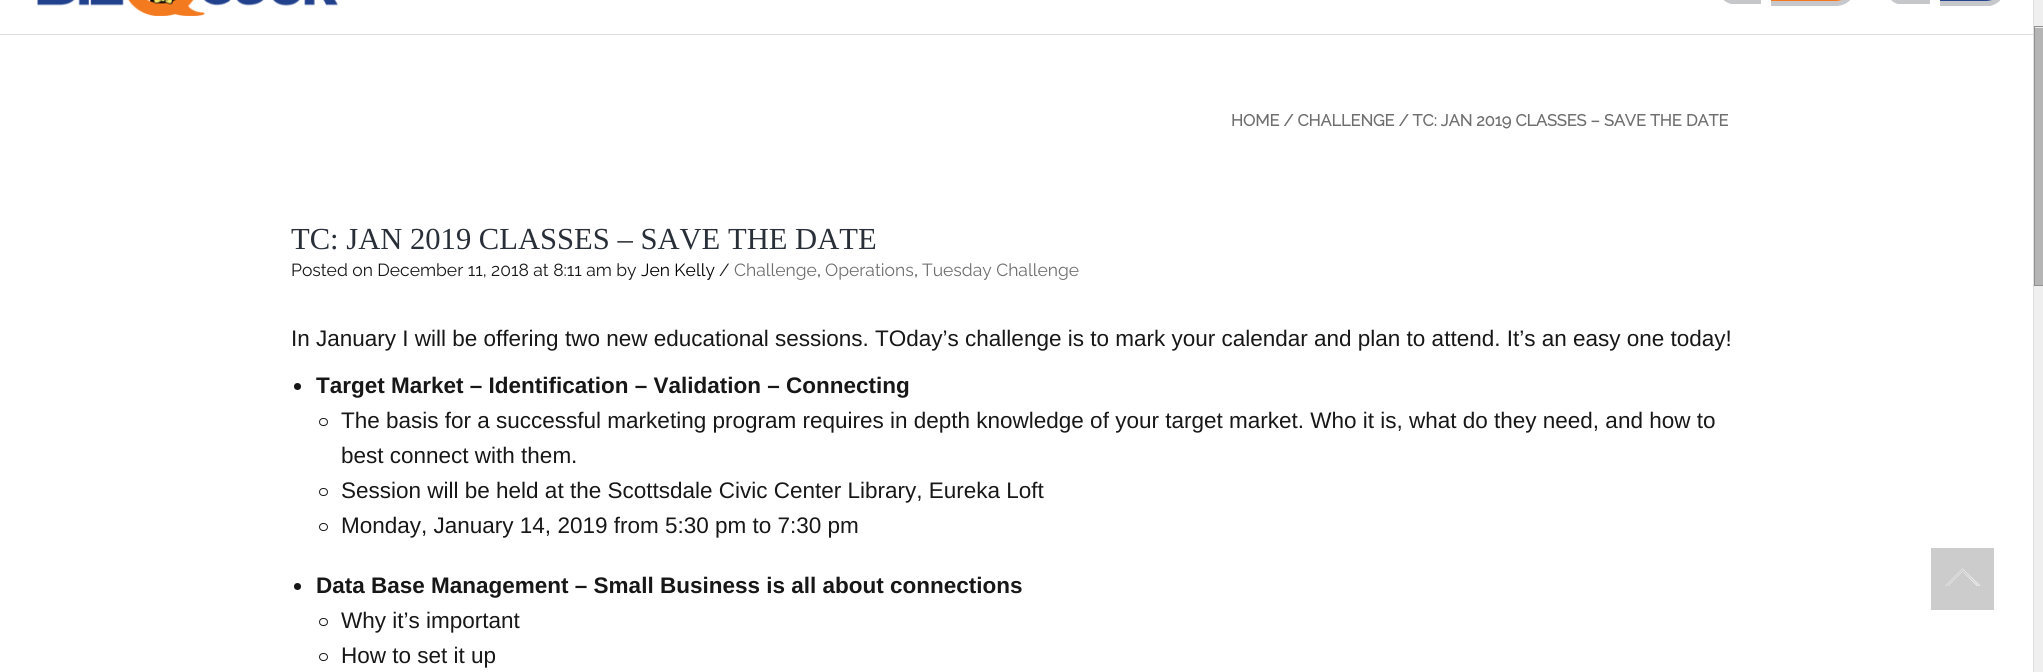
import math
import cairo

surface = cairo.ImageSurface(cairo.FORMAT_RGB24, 2043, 672)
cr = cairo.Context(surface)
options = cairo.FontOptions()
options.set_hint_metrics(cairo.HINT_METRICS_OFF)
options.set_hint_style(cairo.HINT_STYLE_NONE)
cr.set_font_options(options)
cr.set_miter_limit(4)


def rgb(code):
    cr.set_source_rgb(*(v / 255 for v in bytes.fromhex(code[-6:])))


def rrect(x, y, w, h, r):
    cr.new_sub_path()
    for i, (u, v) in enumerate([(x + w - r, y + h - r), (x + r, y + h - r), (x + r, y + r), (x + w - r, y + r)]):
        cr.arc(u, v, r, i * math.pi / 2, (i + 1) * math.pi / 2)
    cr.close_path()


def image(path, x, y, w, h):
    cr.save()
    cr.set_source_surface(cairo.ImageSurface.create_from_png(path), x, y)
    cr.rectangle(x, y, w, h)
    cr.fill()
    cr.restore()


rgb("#ffffff")
cr.paint()
rgb("#dbdbdb")
cr.rectangle(0, 34, 2033, 1)
cr.fill()
rgb("#c5c7cb")
cr.new_path()
cr.move_to(1771, -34)
cr.line_to(1771, 6)
cr.line_to(1836, 6)
cr.curve_to(1847, 6, 1856, -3, 1856, -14)
cr.line_to(1856, -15)
cr.curve_to(1854, -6, 1846, 1, 1836, 1)
cr.line_to(1771, 1)
cr.close_path()
cr.fill()
rgb("#f47a20")
cr.new_path()
cr.move_to(1771, -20)
cr.line_to(1836, -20)
cr.curve_to(1847, -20, 1856, -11, 1856, 0)
cr.line_to(1856, -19)
cr.curve_to(1856, -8, 1847, 1, 1836, 1)
cr.line_to(1771, 1)
cr.close_path()
cr.fill()
rgb("#c5c7cb")
cr.new_path()
cr.move_to(1940, 1)
cr.line_to(1940, 6)
cr.line_to(1990, 6)
cr.curve_to(2000, 4, 2007, -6, 2006, -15)
cr.curve_to(2004, -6, 1996, 1, 1986, 1)
cr.close_path()
cr.fill()
rgb("#28468f")
cr.new_path()
cr.move_to(1940, -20)
cr.line_to(1986, -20)
cr.curve_to(1997, -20, 2006, -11, 2006, 0)
cr.line_to(2006, -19)
cr.curve_to(2006, -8, 1997, 1, 1986, 1)
cr.line_to(1940, 1)
cr.close_path()
cr.fill()
rgb("#c5c7cb")
cr.new_path()
cr.move_to(1719, -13)
cr.curve_to(1718, -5, 1723, 2, 1731, 4)
cr.line_to(1761, 4)
cr.line_to(1761, -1)
cr.line_to(1734, -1)
cr.curve_to(1727, -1, 1721, -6, 1719, -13)
cr.close_path()
cr.fill()
cr.new_path()
cr.move_to(1886, -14)
cr.curve_to(1885, -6, 1890, 2, 1898, 4)
cr.line_to(1930, 4)
cr.line_to(1930, -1)
cr.line_to(1901, -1)
cr.curve_to(1894, -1, 1887, -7, 1886, -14)
cr.close_path()
cr.fill()
image("img/1.png", 37, 0, 301, 16)
rgb("#171717")
cr.arc(297.5, 386.5, 3.5, 0, 2 * math.pi)
cr.fill()
rrect(319.5, 418.5, 8, 7, 3.5)
cr.set_line_width(1)
cr.stroke()
rrect(319.5, 488.5, 8, 7, 3.5)
cr.stroke()
rrect(319.5, 523.5, 8, 7, 3.5)
cr.stroke()
cr.arc(297.5, 586.5, 3.5, 0, 2 * math.pi)
cr.fill()
rrect(319.5, 618.5, 8, 7, 3.5)
cr.stroke()
rrect(319.5, 653.5, 8, 7, 3.5)
cr.stroke()
rgb("#cccccc")
cr.rectangle(1931, 548, 63, 62)
cr.fill()
rgb("#ffffff")
cr.new_path()
cr.move_to(1948, 586)
cr.line_to(1962.5, 571.5)
cr.line_to(1977, 586)
cr.line_to(1978, 586)
cr.line_to(1962.5, 571)
cr.line_to(1947.5, 586)
cr.close_path()
cr.move_to(1945.5, 586)
cr.line_to(1962.5, 569)
cr.line_to(1979.5, 586)
cr.line_to(1980.5, 586)
cr.line_to(1962.5, 568.5)
cr.line_to(1945, 586)
cr.close_path()
cr.fill()
for x, y, w, h, color in [
    (2034, 0, 9, 672, "#efefef"),
    (2033, 0, 1, 672, "#dfdfdf"),
    (2035, 28, 8, 257, "#b5b5b5"),
]:
    rgb(color)
    cr.rectangle(x, y, w, h)
    cr.fill()
cr.rectangle(2034.5, 26.5, 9, 259)
rgb("#909090")
cr.stroke()
cr.select_font_face("Raleway", cairo.FONT_SLANT_NORMAL, cairo.FONT_WEIGHT_BOLD)
cr.set_font_size(16.25)
rgb("#6f6f6f")
cr.move_to(1231, 126)
cr.show_text("HOME / CHALLENGE / TC: JAN 2019 CLASSES – SAVE THE DATE")
cr.select_font_face("Liberation Serif")
cr.set_font_size(30.6)
rgb("#292f38")
cr.move_to(291, 249)
cr.show_text("TC: JAN 2019 CLASSES – SAVE THE DATE")
cr.select_font_face("Raleway Thin")
cr.set_font_size(17.5)
rgb("#171717")
cr.move_to(291, 276)
cr.show_text("Posted on December 11, 2018 at 8:11 am by")
rgb("#000000")
cr.move_to(641, 276)
cr.show_text("Jen Kelly")
rgb("#171717")
cr.move_to(719, 276)
cr.show_text("/")
rgb("#6f6f6f")
cr.move_to(734, 276)
cr.show_text("Challenge")
rgb("#171717")
cr.move_to(817, 276)
cr.show_text(",")
rgb("#6f6f6f")
cr.move_to(825, 276)
cr.show_text("Operations")
rgb("#171717")
cr.move_to(914, 276)
cr.show_text(",")
rgb("#6f6f6f")
cr.move_to(922, 276)
cr.show_text("Tuesday Challenge")
cr.select_font_face("Liberation Sans")
cr.set_font_size(22.5)
rgb("#171717")
cr.move_to(291, 346)
cr.show_text("In January I will be offering two new educational sessions. TOday’s challenge is to mark your calendar and plan to attend. It’s an easy one today!")
cr.select_font_face("Liberation Sans", cairo.FONT_SLANT_NORMAL, cairo.FONT_WEIGHT_BOLD)
cr.move_to(316, 393)
cr.show_text("Target Market – Identification – Validation – Connecting")
cr.select_font_face("Liberation Sans")
for x, y, s in [
    (341, 428, "The basis for a successful marketing program requires in depth knowledge of your target market. Who it is, what do they need, and how to"),
    (341, 463, "best connect with them."),
    (341, 498, "Session will be held at the Scottsdale Civic Center Library, Eureka Loft"),
    (341, 533, "Monday, January 14, 2019 from 5:30 pm to 7:30 pm"),
]:
    cr.move_to(x, y)
    cr.show_text(s)
cr.select_font_face("Liberation Sans", cairo.FONT_SLANT_NORMAL, cairo.FONT_WEIGHT_BOLD)
cr.move_to(316, 593)
cr.show_text("Data Base Management – Small Business is all about connections")
cr.select_font_face("Liberation Sans")
cr.move_to(341, 628)
cr.show_text("Why it’s important")
cr.move_to(341, 663)
cr.show_text("How to set it up")
surface.write_to_png("page.png")
